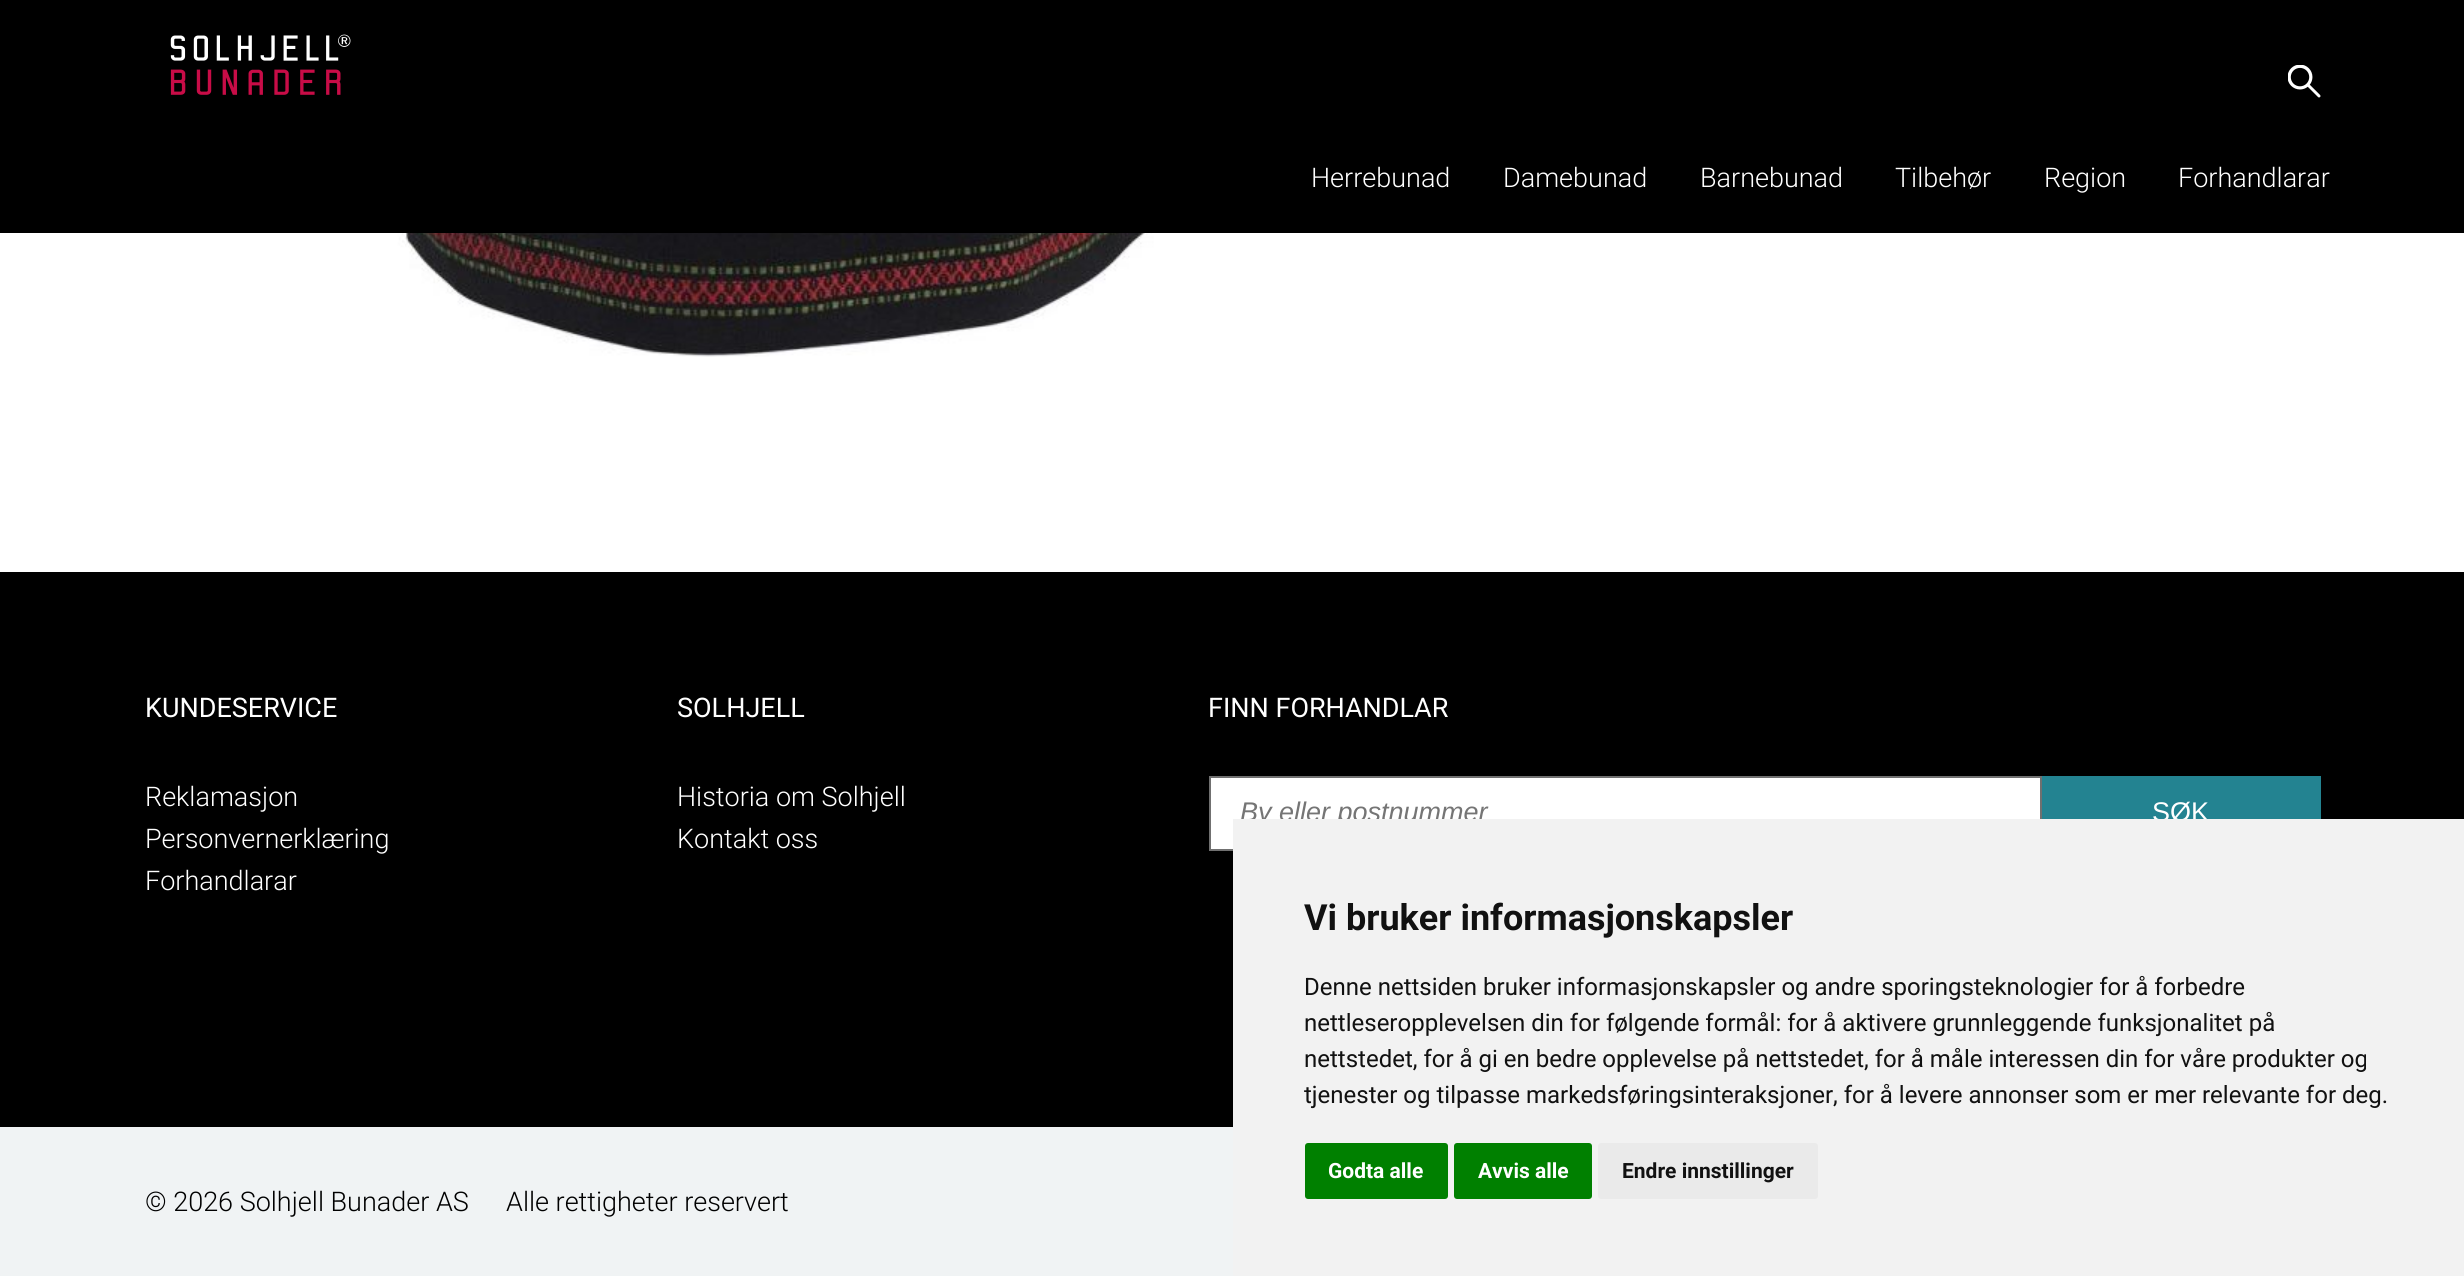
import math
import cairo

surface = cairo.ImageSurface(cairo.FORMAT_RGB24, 2464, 1276)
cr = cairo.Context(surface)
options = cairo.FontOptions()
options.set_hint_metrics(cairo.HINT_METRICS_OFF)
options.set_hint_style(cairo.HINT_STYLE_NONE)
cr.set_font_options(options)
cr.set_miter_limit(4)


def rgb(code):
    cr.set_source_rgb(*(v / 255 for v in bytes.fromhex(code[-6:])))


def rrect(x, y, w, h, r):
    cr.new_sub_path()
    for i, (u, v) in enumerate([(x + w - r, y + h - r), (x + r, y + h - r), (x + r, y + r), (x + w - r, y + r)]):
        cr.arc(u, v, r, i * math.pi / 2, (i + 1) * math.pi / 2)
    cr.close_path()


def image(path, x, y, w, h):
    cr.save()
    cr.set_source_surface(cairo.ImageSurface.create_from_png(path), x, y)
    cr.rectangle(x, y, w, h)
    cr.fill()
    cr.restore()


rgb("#ffffff")
cr.paint()
rgb("#000000")
cr.rectangle(0, 0, 2464, 233)
cr.fill()
image("img/1.png", 170, 34, 181, 61)
image("img/2.png", 2288, 65, 33, 33)
image("img/3.png", 385, 233, 773, 124)
cr.rectangle(0, 572, 2464, 555)
cr.fill()
rgb("#ffffff")
cr.rectangle(1210, 777, 831, 73)
cr.fill_preserve()
rgb("#707070")
cr.stroke()
rgb("#238391")
cr.rectangle(2042, 776, 279, 43)
cr.fill()
rgb("#f0f3f4")
cr.rectangle(0, 1127, 1233, 149)
cr.fill()
cr.select_font_face("Roboto Light")
cr.set_font_size(27)
rgb("#ffffff")
for x, y, s in [
    (1311, 187, "Herrebunad"),
    (1503, 187, "Damebunad"),
    (1700, 187, "Barnebunad"),
    (1895, 187, "Tilbehør"),
    (2044, 187, "Region"),
    (2178, 187, "Forhandlarar"),
]:
    cr.move_to(x, y)
    cr.show_text(s)
cr.select_font_face("Roboto")
cr.move_to(145, 717)
cr.show_text("KUNDESERVICE")
cr.select_font_face("Roboto Light")
for x, y, s in [
    (145, 806, "Reklamasjon"),
    (145, 848, "Personvernerklæring"),
    (145, 890, "Forhandlarar"),
]:
    cr.move_to(x, y)
    cr.show_text(s)
cr.select_font_face("Roboto")
cr.move_to(677, 717)
cr.show_text("SOLHJELL")
cr.select_font_face("Roboto Light")
cr.move_to(677, 806)
cr.show_text("Historia om Solhjell")
cr.move_to(677, 848)
cr.show_text("Kontakt oss")
cr.select_font_face("Roboto")
cr.move_to(1208, 717)
cr.show_text("FINN FORHANDLAR")
cr.select_font_face("Liberation Sans", cairo.FONT_SLANT_ITALIC)
rgb("#757575")
cr.move_to(1240, 821)
cr.show_text("By eller postnummer")
cr.select_font_face("Liberation Sans")
rgb("#ffffff")
cr.move_to(2152, 821)
cr.show_text("SØK")
cr.select_font_face("Roboto Light")
rgb("#000000")
cr.move_to(145, 1211)
cr.show_text("© 2026 Solhjell Bunader AS")
cr.move_to(506, 1211)
cr.show_text("Alle rettigheter reservert")
rgb("#f2f2f2")
cr.rectangle(1233, 819, 1231, 457)
cr.fill()
cr.select_font_face("Roboto", cairo.FONT_SLANT_NORMAL, cairo.FONT_WEIGHT_BOLD)
cr.set_font_size(36)
rgb("#111111")
cr.move_to(1304, 930)
cr.show_text("Vi bruker informasjonskapsler")
cr.select_font_face("Roboto")
cr.set_font_size(24)
for x, y, s in [
    (1304, 995, "Denne nettsiden bruker informasjonskapsler og andre sporingsteknologier for å forbedre"),
    (1304, 1031, "nettleseropplevelsen din for følgende formål: for å aktivere grunnleggende funksjonalitet på"),
    (1304, 1067, "nettstedet, for å gi en bedre opplevelse på nettstedet, for å måle interessen din for våre produkter og"),
    (1304, 1103, "tjenester og tilpasse markedsføringsinteraksjoner, for å levere annonser som er mer relevante for deg."),
]:
    cr.move_to(x, y)
    cr.show_text(s)
rgb("#008000")
rrect(1305, 1143, 143, 56, 3)
cr.fill()
cr.select_font_face("Roboto", cairo.FONT_SLANT_NORMAL, cairo.FONT_WEIGHT_BOLD)
cr.set_font_size(21)
rgb("#ffffff")
cr.move_to(1328, 1178)
cr.show_text("Godta alle")
rgb("#008000")
rrect(1454, 1143, 138, 56, 3)
cr.fill()
rgb("#ffffff")
cr.move_to(1478, 1178)
cr.show_text("Avvis alle")
rgb("#eaeaea")
rrect(1598, 1143, 220, 56, 3)
cr.fill()
rgb("#111111")
cr.move_to(1622, 1178)
cr.show_text("Endre innstillinger")
surface.write_to_png("page.png")
